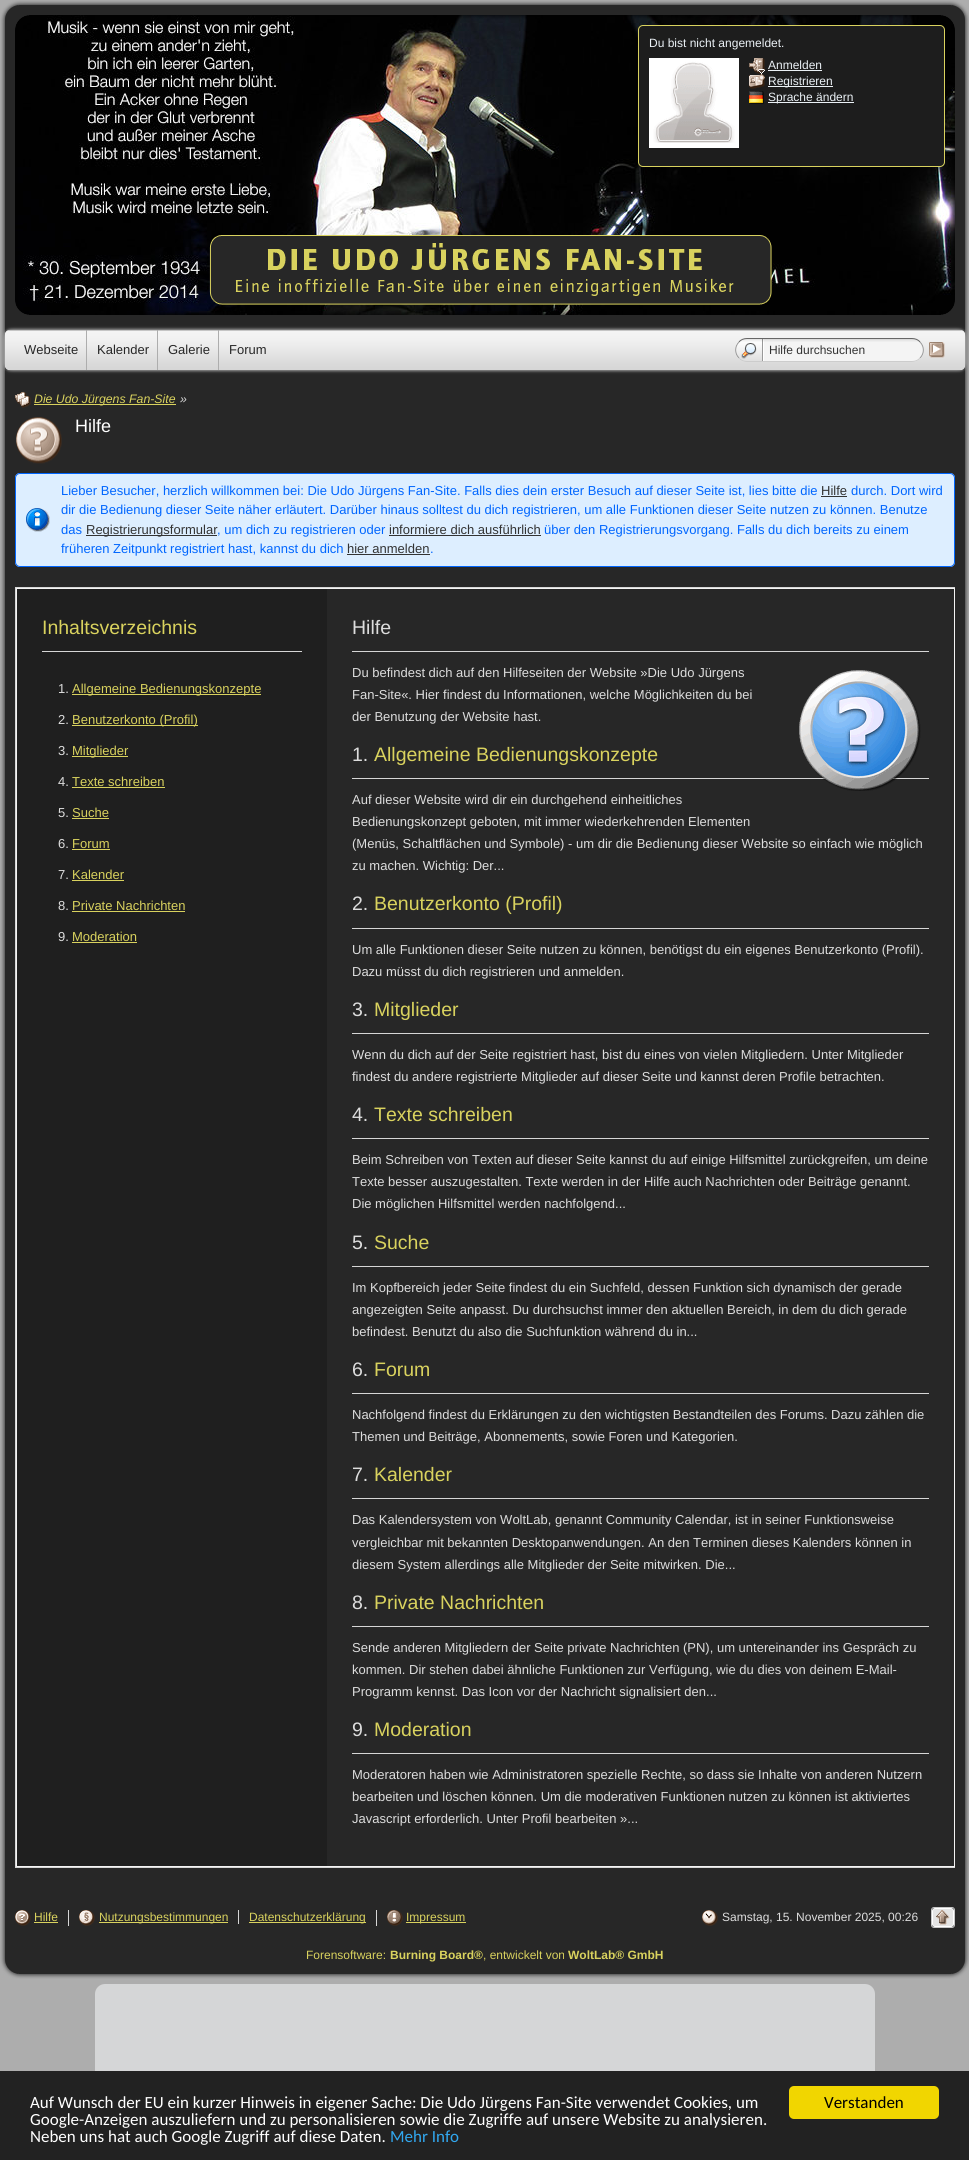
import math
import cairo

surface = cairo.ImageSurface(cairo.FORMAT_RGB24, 969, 2160)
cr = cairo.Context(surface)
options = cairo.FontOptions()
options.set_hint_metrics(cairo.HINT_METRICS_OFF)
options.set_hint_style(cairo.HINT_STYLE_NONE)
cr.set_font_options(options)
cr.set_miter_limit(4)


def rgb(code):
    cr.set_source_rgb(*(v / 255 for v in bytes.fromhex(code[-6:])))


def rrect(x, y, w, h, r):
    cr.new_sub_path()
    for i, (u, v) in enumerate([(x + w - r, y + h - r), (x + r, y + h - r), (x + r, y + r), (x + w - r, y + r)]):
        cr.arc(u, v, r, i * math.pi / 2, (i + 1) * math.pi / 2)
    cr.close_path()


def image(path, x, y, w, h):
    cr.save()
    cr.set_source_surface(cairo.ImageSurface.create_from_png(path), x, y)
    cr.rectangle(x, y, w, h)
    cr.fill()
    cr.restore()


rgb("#adadad")
cr.paint()
image("img/1.png", 15, 15, 940, 300)
image("img/7.png", 0, 0, 969, 325)
rgb("#1d1d1d")
rrect(638.5, 25.5, 306, 141, 4.5)
cr.fill_preserve()
rgb("#d9d25e")
cr.set_line_width(1)
cr.stroke()
image("img/2.png", 649, 58, 90, 90)
image("img/3.png", 749, 58, 16, 16)
rgb("#ebf1f6")
cr.rectangle(768, 70, 54, 1)
cr.fill()
image("img/4.png", 749, 74, 16, 15)
cr.rectangle(768, 86, 65, 1)
cr.fill()
image("img/5.png", 749, 91, 15, 13)
cr.rectangle(768, 102, 86, 1)
cr.fill()
image("img/6.png", 0, 325, 969, 50)
for x, y, w, h, color in [
    (86, 330, 1, 40, "#adadad"),
    (157, 330, 1, 40, "#adadad"),
    (218, 330, 1, 40, "#adadad"),
]:
    rgb(color)
    cr.rectangle(x, y, w, h)
    cr.fill()
rgb("#f4f4f4")
rrect(735, 338, 189, 24, 12)
cr.fill()
image("img/8.png", 736, 339, 183, 23)
cr.new_path()
cr.move_to(739, 342)
cr.curve_to(741, 339.5, 744, 338.5, 747, 338.5)
cr.line_to(912, 338.5)
cr.curve_to(915, 338.5, 918, 339.5, 920, 342)
rgb("#666666")
cr.stroke()
cr.new_path()
cr.move_to(920, 342)
cr.curve_to(924.5, 346.5, 924.5, 353.5, 920, 358)
rgb("#999999")
cr.stroke()
cr.new_path()
cr.move_to(920, 358)
cr.curve_to(918, 360.5, 915, 361.5, 912, 361.5)
cr.line_to(747, 361.5)
cr.curve_to(744, 361.5, 741, 360.5, 739, 358)
rgb("#cccccc")
cr.stroke()
cr.new_path()
cr.move_to(739, 358)
cr.curve_to(734.5, 353.5, 734.5, 346.5, 739, 342)
rgb("#999999")
cr.stroke()
image("img/9.png", 929, 342, 16, 16)
image("img/10.png", 0, 375, 969, 1520)
image("img/11.png", 15, 392, 16, 16)
rgb("#d9d25e")
cr.rectangle(34, 404, 142, 1)
cr.fill()
image("img/12.png", 16, 417, 46, 47)
rgb("#ddeeff")
rrect(15, 473, 940, 94, 5)
cr.fill()
image("img/13.png", 26, 508, 24, 24)
rrect(15.5, 473.5, 939, 93, 4.5)
rgb("#0066ff")
cr.stroke()
for x, y, w, h, color in [
    (821, 496, 26, 1, "#333333"),
    (86, 535, 131, 1, "#333333"),
    (389, 535, 152, 1, "#333333"),
    (347, 554, 83, 1, "#333333"),
]:
    rgb(color)
    cr.rectangle(x, y, w, h)
    cr.fill()
rgb("#f4f4f4")
cr.rectangle(15.5, 587.5, 939, 1280)
cr.fill_preserve()
rgb("#d6d6d6")
cr.stroke()
for x, y, w, h, color in [
    (954, 588, 1, 1279, "#f4f4f4"),
    (17, 589, 310, 1277, "#1f1f1f"),
    (42, 651, 260, 1, "#d6d6d6"),
    (72, 694, 189, 1, "#d9d25e"),
    (72, 725, 126, 1, "#d9d25e"),
    (72, 756, 56, 1, "#d9d25e"),
    (72, 787, 93, 1, "#d9d25e"),
    (72, 818, 37, 1, "#d9d25e"),
    (72, 849, 38, 1, "#d9d25e"),
    (72, 880, 52, 1, "#d9d25e"),
    (72, 911, 113, 1, "#d9d25e"),
    (72, 942, 65, 1, "#d9d25e"),
    (327, 589, 627, 1277, "#272727"),
    (352, 651, 577, 1, "#d6d6d6"),
    (352, 778, 577, 1, "#d6d6d6"),
]:
    rgb(color)
    cr.rectangle(x, y, w, h)
    cr.fill()
image("img/14.png", 799, 670, 122, 121)
for x, y, w, h, color in [
    (352, 928, 577, 1, "#d6d6d6"),
    (352, 1033, 577, 1, "#d6d6d6"),
    (352, 1138, 577, 1, "#d6d6d6"),
    (352, 1266, 577, 1, "#d6d6d6"),
    (352, 1393, 577, 1, "#d6d6d6"),
    (352, 1498, 577, 1, "#d6d6d6"),
    (352, 1626, 577, 1, "#d6d6d6"),
    (352, 1753, 577, 1, "#d6d6d6"),
]:
    rgb(color)
    cr.rectangle(x, y, w, h)
    cr.fill()
image("img/15.png", 0, 1895, 969, 84)
image("img/16.png", 15, 1910, 16, 16)
rgb("#d9d25e")
cr.rectangle(34, 1922, 24, 1)
cr.fill()
rgb("#d6d6d6")
cr.rectangle(68, 1910, 1, 16)
cr.fill()
image("img/17.png", 79, 1910, 16, 16)
for x, y, w, h, color in [
    (99, 1922, 129, 1, "#d9d25e"),
    (238, 1910, 1, 14, "#d6d6d6"),
    (249, 1922, 117, 1, "#d9d25e"),
    (376, 1910, 1, 16, "#d6d6d6"),
]:
    rgb(color)
    cr.rectangle(x, y, w, h)
    cr.fill()
image("img/18.png", 387, 1910, 16, 16)
rgb("#d9d25e")
cr.rectangle(406, 1922, 60, 1)
cr.fill()
image("img/19.png", 702, 1910, 16, 16)
rrect(931.5, 1907.5, 23, 20, 2.5)
rgb("#c7c7c7")
cr.stroke()
rgb("#e4e4e4")
rrect(932.5, 1908.5, 21, 18, 2.5)
cr.fill_preserve()
rgb("#ffffff")
cr.stroke()
image("img/20.png", 936, 1910, 14, 15)
rgb("#d5d6d7")
rrect(95, 1984, 780, 100, 10)
cr.fill()
rgb("#222222")
cr.rectangle(0, 2071, 969, 89)
cr.fill()
rgb("#f1d600")
rrect(789, 2086, 150, 33, 5)
cr.fill()
cr.select_font_face("Liberation Sans")
cr.set_font_size(12)
rgb("#ebf1f6")
for x, y, s in [
    (649, 47, "Du bist nicht angemeldet."),
    (768, 69, "Anmelden"),
    (768, 85, "Registrieren"),
    (768, 101, "Sprache ändern"),
]:
    cr.move_to(x, y)
    cr.show_text(s)
cr.set_font_size(13)
rgb("#272727")
for x, y, s in [
    (24, 354, "Webseite"),
    (97, 354, "Kalender"),
    (168, 354, "Galerie"),
    (229, 354, "Forum"),
]:
    cr.move_to(x, y)
    cr.show_text(s)
cr.set_font_size(12)
rgb("#333333")
cr.move_to(769, 354)
cr.show_text("Hilfe durchsuchen")
cr.select_font_face("Liberation Sans", cairo.FONT_SLANT_ITALIC)
cr.set_font_size(12.3)
rgb("#d9d25e")
cr.move_to(34, 403)
cr.show_text("Die Udo Jürgens Fan-Site")
rgb("#dddddd")
cr.move_to(180, 403)
cr.show_text("»")
cr.select_font_face("Liberation Sans")
cr.set_font_size(18)
rgb("#ffffff")
cr.move_to(75, 432)
cr.show_text("Hilfe")
cr.set_font_size(13)
rgb("#0066ff")
cr.move_to(61, 495)
cr.show_text("Lieber Besucher, herzlich willkommen bei: Die Udo Jürgens Fan-Site. Falls dies dein erster Besuch auf dieser Seite ist, lies bitte die")
rgb("#333333")
cr.move_to(821, 495)
cr.show_text("Hilfe")
rgb("#0066ff")
for x, y, s in [
    (851, 495, "durch. Dort wird"),
    (61, 514, "dir die Bedienung dieser Seite näher erläutert. Darüber hinaus solltest du dich registrieren, um alle Funktionen dieser Seite nutzen zu können. Benutze"),
    (61, 534, "das"),
]:
    cr.move_to(x, y)
    cr.show_text(s)
rgb("#333333")
cr.move_to(86, 534)
cr.show_text("Registrierungsformular")
rgb("#0066ff")
cr.move_to(217, 534)
cr.show_text(", um dich zu registrieren oder")
rgb("#333333")
cr.move_to(389, 534)
cr.show_text("informiere dich ausführlich")
rgb("#0066ff")
cr.move_to(544, 534)
cr.show_text("über den Registrierungsvorgang. Falls du dich bereits zu einem")
cr.move_to(61, 553)
cr.show_text("früheren Zeitpunkt registriert hast, kannst du dich")
rgb("#333333")
cr.move_to(347, 553)
cr.show_text("hier anmelden")
rgb("#0066ff")
cr.move_to(430, 553)
cr.show_text(".")
cr.set_font_size(19.5)
rgb("#d9d25e")
cr.move_to(42, 634)
cr.show_text("Inhaltsverzeichnis")
cr.set_font_size(13)
rgb("#dddddd")
cr.move_to(58, 693)
cr.show_text("1.")
rgb("#d9d25e")
cr.move_to(72, 693)
cr.show_text("Allgemeine Bedienungskonzepte")
rgb("#dddddd")
cr.move_to(58, 724)
cr.show_text("2.")
rgb("#d9d25e")
cr.move_to(72, 724)
cr.show_text("Benutzerkonto (Profil)")
rgb("#dddddd")
cr.move_to(58, 755)
cr.show_text("3.")
rgb("#d9d25e")
cr.move_to(72, 755)
cr.show_text("Mitglieder")
rgb("#dddddd")
cr.move_to(58, 786)
cr.show_text("4.")
rgb("#d9d25e")
cr.move_to(72, 786)
cr.show_text("Texte schreiben")
rgb("#dddddd")
cr.move_to(58, 817)
cr.show_text("5.")
rgb("#d9d25e")
cr.move_to(72, 817)
cr.show_text("Suche")
rgb("#dddddd")
cr.move_to(58, 848)
cr.show_text("6.")
rgb("#d9d25e")
cr.move_to(72, 848)
cr.show_text("Forum")
rgb("#dddddd")
cr.move_to(58, 879)
cr.show_text("7.")
rgb("#d9d25e")
cr.move_to(72, 879)
cr.show_text("Kalender")
rgb("#dddddd")
cr.move_to(58, 910)
cr.show_text("8.")
rgb("#d9d25e")
cr.move_to(72, 910)
cr.show_text("Private Nachrichten")
rgb("#dddddd")
cr.move_to(58, 941)
cr.show_text("9.")
rgb("#d9d25e")
cr.move_to(72, 941)
cr.show_text("Moderation")
cr.set_font_size(19.5)
rgb("#dddddd")
cr.move_to(352, 634)
cr.show_text("Hilfe")
cr.set_font_size(13)
for x, y, s in [
    (352, 677, "Du befindest dich auf den Hilfeseiten der Website »Die Udo Jürgens"),
    (352, 699, "Fan-Site«. Hier findest du Informationen, welche Möglichkeiten du bei"),
    (352, 721, "der Benutzung der Website hast."),
]:
    cr.move_to(x, y)
    cr.show_text(s)
cr.set_font_size(19.5)
cr.move_to(352, 761)
cr.show_text("1.")
rgb("#d9d25e")
cr.move_to(374, 761)
cr.show_text("Allgemeine Bedienungskonzepte")
cr.set_font_size(13)
rgb("#dddddd")
for x, y, s in [
    (352, 804, "Auf dieser Website wird dir ein durchgehend einheitliches"),
    (352, 826, "Bedienungskonzept geboten, mit immer wiederkehrenden Elementen"),
    (352, 848, "(Menüs, Schaltflächen und Symbole) - um dir die Bedienung dieser Website so einfach wie möglich"),
    (352, 870, "zu machen. Wichtig: Der..."),
]:
    cr.move_to(x, y)
    cr.show_text(s)
cr.set_font_size(19.5)
cr.move_to(352, 910)
cr.show_text("2.")
rgb("#d9d25e")
cr.move_to(374, 910)
cr.show_text("Benutzerkonto (Profil)")
cr.set_font_size(13)
rgb("#dddddd")
cr.move_to(352, 954)
cr.show_text("Um alle Funktionen dieser Seite nutzen zu können, benötigst du ein eigenes Benutzerkonto (Profil).")
cr.move_to(352, 976)
cr.show_text("Dazu müsst du dich registrieren und anmelden.")
cr.set_font_size(19.5)
cr.move_to(352, 1016)
cr.show_text("3.")
rgb("#d9d25e")
cr.move_to(374, 1016)
cr.show_text("Mitglieder")
cr.set_font_size(13)
rgb("#dddddd")
cr.move_to(352, 1059)
cr.show_text("Wenn du dich auf der Seite registriert hast, bist du eines von vielen Mitgliedern. Unter Mitglieder")
cr.move_to(352, 1081)
cr.show_text("findest du andere registrierte Mitglieder auf dieser Seite und kannst deren Profile betrachten.")
cr.set_font_size(19.5)
cr.move_to(352, 1121)
cr.show_text("4.")
rgb("#d9d25e")
cr.move_to(374, 1121)
cr.show_text("Texte schreiben")
cr.set_font_size(13)
rgb("#dddddd")
for x, y, s in [
    (352, 1164, "Beim Schreiben von Texten auf dieser Seite kannst du auf einige Hilfsmittel zurückgreifen, um deine"),
    (352, 1186, "Texte besser auszugestalten. Texte werden in der Hilfe auch Nachrichten oder Beiträge genannt."),
    (352, 1208, "Die möglichen Hilfsmittel werden nachfolgend..."),
]:
    cr.move_to(x, y)
    cr.show_text(s)
cr.set_font_size(19.5)
cr.move_to(352, 1249)
cr.show_text("5.")
rgb("#d9d25e")
cr.move_to(374, 1249)
cr.show_text("Suche")
cr.set_font_size(13)
rgb("#dddddd")
for x, y, s in [
    (352, 1292, "Im Kopfbereich jeder Seite findest du ein Suchfeld, dessen Funktion sich dynamisch der gerade"),
    (352, 1314, "angezeigten Seite anpasst. Du durchsuchst immer den aktuellen Bereich, in dem du dich gerade"),
    (352, 1336, "befindest. Benutzt du also die Suchfunktion während du in..."),
]:
    cr.move_to(x, y)
    cr.show_text(s)
cr.set_font_size(19.5)
cr.move_to(352, 1376)
cr.show_text("6.")
rgb("#d9d25e")
cr.move_to(374, 1376)
cr.show_text("Forum")
cr.set_font_size(13)
rgb("#dddddd")
cr.move_to(352, 1419)
cr.show_text("Nachfolgend findest du Erklärungen zu den wichtigsten Bestandteilen des Forums. Dazu zählen die")
cr.move_to(352, 1441)
cr.show_text("Themen und Beiträge, Abonnements, sowie Foren und Kategorien.")
cr.set_font_size(19.5)
cr.move_to(352, 1481)
cr.show_text("7.")
rgb("#d9d25e")
cr.move_to(374, 1481)
cr.show_text("Kalender")
cr.set_font_size(13)
rgb("#dddddd")
for x, y, s in [
    (352, 1524, "Das Kalendersystem von WoltLab, genannt Community Calendar, ist in seiner Funktionsweise"),
    (352, 1547, "vergleichbar mit bekannten Desktopanwendungen. An den Terminen dieses Kalenders können in"),
    (352, 1569, "diesem System allerdings alle Mitglieder der Seite mitwirken. Die..."),
]:
    cr.move_to(x, y)
    cr.show_text(s)
cr.set_font_size(19.5)
cr.move_to(352, 1609)
cr.show_text("8.")
rgb("#d9d25e")
cr.move_to(374, 1609)
cr.show_text("Private Nachrichten")
cr.set_font_size(13)
rgb("#dddddd")
for x, y, s in [
    (352, 1652, "Sende anderen Mitgliedern der Seite private Nachrichten (PN), um untereinander ins Gespräch zu"),
    (352, 1674, "kommen. Dir stehen dabei ähnliche Funktionen zur Verfügung, wie du dies von deinem E-Mail-"),
    (352, 1696, "Programm kennst. Das Icon vor der Nachricht signalisiert den..."),
]:
    cr.move_to(x, y)
    cr.show_text(s)
cr.set_font_size(19.5)
cr.move_to(352, 1736)
cr.show_text("9.")
rgb("#d9d25e")
cr.move_to(374, 1736)
cr.show_text("Moderation")
cr.set_font_size(13)
rgb("#dddddd")
for x, y, s in [
    (352, 1779, "Moderatoren haben wie Administratoren spezielle Rechte, so dass sie Inhalte von anderen Nutzern"),
    (352, 1801, "bearbeiten und löschen können. Um die moderativen Funktionen nutzen zu können ist aktiviertes"),
    (352, 1823, "Javascript erforderlich. Unter Profil bearbeiten »..."),
]:
    cr.move_to(x, y)
    cr.show_text(s)
cr.set_font_size(12)
rgb("#d9d25e")
for x, y, s in [
    (34, 1921, "Hilfe"),
    (99, 1921, "Nutzungsbestimmungen"),
    (249, 1921, "Datenschutzerklärung"),
    (406, 1921, "Impressum"),
]:
    cr.move_to(x, y)
    cr.show_text(s)
rgb("#dddddd")
cr.move_to(722, 1921)
cr.show_text("Samstag, 15. November 2025, 00:26")
rgb("#d9d25e")
cr.move_to(306, 1959)
cr.show_text("Forensoftware:")
cr.select_font_face("Liberation Sans", cairo.FONT_SLANT_NORMAL, cairo.FONT_WEIGHT_BOLD)
cr.move_to(390, 1959)
cr.show_text("Burning Board®")
cr.select_font_face("Liberation Sans")
cr.move_to(483, 1959)
cr.show_text(", entwickelt von")
cr.select_font_face("Liberation Sans", cairo.FONT_SLANT_NORMAL, cairo.FONT_WEIGHT_BOLD)
cr.move_to(568, 1959)
cr.show_text("WoltLab® GmbH")
cr.select_font_face("Carlito")
cr.set_font_size(17)
rgb("#ffffff")
for x, y, s in [
    (30, 2108, "Auf Wunsch der EU ein kurzer Hinweis in eigener Sache: Die Udo Jürgens Fan-Site verwendet Cookies, um"),
    (30, 2125, "Google-Anzeigen auszuliefern und zu personalisieren sowie die Zugriffe auf unsere Website zu analysieren."),
    (30, 2142, "Neben uns hat auch Google Zugriff auf diese Daten."),
]:
    cr.move_to(x, y)
    cr.show_text(s)
rgb("#31a8f0")
cr.move_to(390, 2142)
cr.show_text("Mehr Info")
rgb("#000000")
cr.move_to(824, 2108)
cr.show_text("Verstanden")
surface.write_to_png("page.png")
